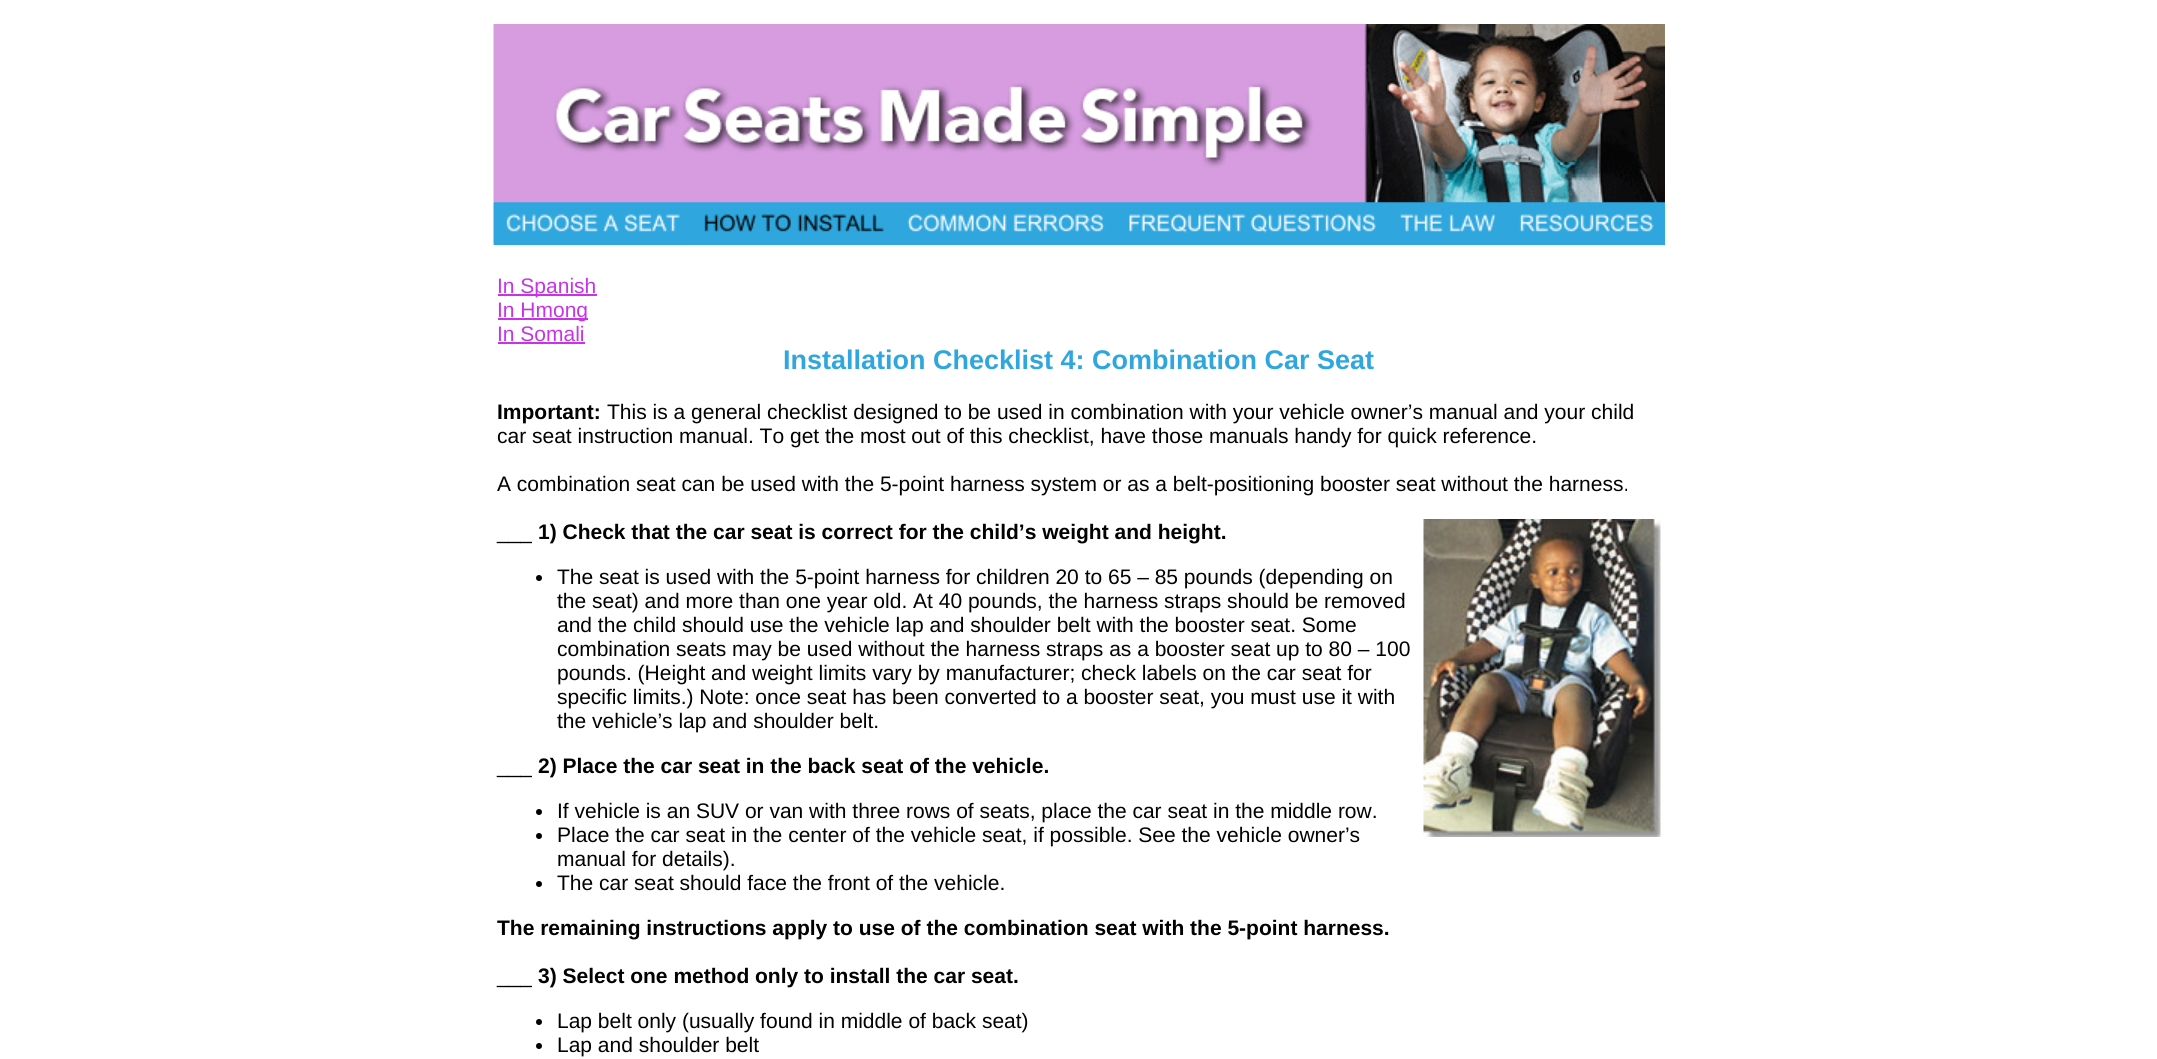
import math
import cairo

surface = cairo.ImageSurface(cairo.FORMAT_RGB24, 2157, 1059)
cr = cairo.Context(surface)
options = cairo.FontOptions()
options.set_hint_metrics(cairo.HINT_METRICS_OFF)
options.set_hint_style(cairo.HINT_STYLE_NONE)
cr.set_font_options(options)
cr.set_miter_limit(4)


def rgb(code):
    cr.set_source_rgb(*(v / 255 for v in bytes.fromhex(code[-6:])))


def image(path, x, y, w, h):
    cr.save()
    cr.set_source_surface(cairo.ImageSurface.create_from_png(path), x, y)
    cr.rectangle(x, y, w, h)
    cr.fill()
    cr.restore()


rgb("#ffffff")
cr.paint()
rgb("#2fa7de")
cr.rectangle(494, 202, 1171, 43)
cr.fill()
image("img/1.png", 493, 24, 1172, 179)
image("img/2.png", 493, 202, 199, 43)
image("img/3.png", 691, 202, 205, 30)
image("img/4.png", 895, 202, 221, 30)
image("img/5.png", 1116, 202, 272, 31)
image("img/6.png", 1387, 202, 121, 30)
image("img/7.png", 1507, 202, 158, 30)
for x, y, w, h, color in [
    (498, 294, 99, 2, "#c833e8"),
    (498, 318, 90, 2, "#c833e8"),
    (498, 342, 87, 2, "#c833e8"),
]:
    rgb(color)
    cr.rectangle(x, y, w, h)
    cr.fill()
image("img/8.png", 1423, 519, 238, 318)
rgb("#000000")
cr.arc(539, 578, 3, 0, 2 * math.pi)
cr.fill()
cr.arc(539, 812, 3, 0, 2 * math.pi)
cr.fill()
cr.arc(539, 836, 3, 0, 2 * math.pi)
cr.fill()
cr.arc(539, 884, 3, 0, 2 * math.pi)
cr.fill()
cr.arc(539, 1022, 3, 0, 2 * math.pi)
cr.fill()
cr.arc(539, 1046, 3, 0, 2 * math.pi)
cr.fill()
cr.select_font_face("Liberation Sans")
cr.set_font_size(21)
rgb("#c833e8")
for x, y, s in [
    (497, 293, "In Spanish"),
    (497, 317, "In Hmong"),
    (497, 341, "In Somali"),
]:
    cr.move_to(x, y)
    cr.show_text(s)
cr.select_font_face("Liberation Sans", cairo.FONT_SLANT_NORMAL, cairo.FONT_WEIGHT_BOLD)
cr.set_font_size(27)
rgb("#2fa7de")
cr.move_to(783, 369)
cr.show_text("Installation Checklist 4: Combination Car Seat")
cr.set_font_size(21)
rgb("#000000")
cr.move_to(497, 419)
cr.show_text("Important:")
cr.select_font_face("Liberation Sans")
for x, y, s in [
    (607, 419, "This is a general checklist designed to be used in combination with your vehicle owner’s manual and your child"),
    (497, 443, "car seat instruction manual. To get the most out of this checklist, have those manuals handy for quick reference."),
    (497, 491, "A combination seat can be used with the 5-point harness system or as a belt-positioning booster seat without the harness."),
    (497, 539, "___"),
]:
    cr.move_to(x, y)
    cr.show_text(s)
cr.select_font_face("Liberation Sans", cairo.FONT_SLANT_NORMAL, cairo.FONT_WEIGHT_BOLD)
cr.move_to(538, 539)
cr.show_text("1) Check that the car seat is correct for the child’s weight and height.")
cr.select_font_face("Liberation Sans")
for x, y, s in [
    (557, 584, "The seat is used with the 5-point harness for children 20 to 65 – 85 pounds (depending on"),
    (557, 608, "the seat) and more than one year old. At 40 pounds, the harness straps should be removed"),
    (557, 632, "and the child should use the vehicle lap and shoulder belt with the booster seat. Some"),
    (557, 656, "combination seats may be used without the harness straps as a booster seat up to 80 – 100"),
    (557, 680, "pounds. (Height and weight limits vary by manufacturer; check labels on the car seat for"),
    (557, 704, "specific limits.) Note: once seat has been converted to a booster seat, you must use it with"),
    (557, 728, "the vehicle’s lap and shoulder belt."),
    (497, 773, "___"),
]:
    cr.move_to(x, y)
    cr.show_text(s)
cr.select_font_face("Liberation Sans", cairo.FONT_SLANT_NORMAL, cairo.FONT_WEIGHT_BOLD)
cr.move_to(538, 773)
cr.show_text("2) Place the car seat in the back seat of the vehicle.")
cr.select_font_face("Liberation Sans")
for x, y, s in [
    (557, 818, "If vehicle is an SUV or van with three rows of seats, place the car seat in the middle row."),
    (557, 842, "Place the car seat in the center of the vehicle seat, if possible. See the vehicle owner’s"),
    (557, 866, "manual for details)."),
    (557, 890, "The car seat should face the front of the vehicle."),
]:
    cr.move_to(x, y)
    cr.show_text(s)
cr.select_font_face("Liberation Sans", cairo.FONT_SLANT_NORMAL, cairo.FONT_WEIGHT_BOLD)
cr.move_to(497, 935)
cr.show_text("The remaining instructions apply to use of the combination seat with the 5-point harness.")
cr.select_font_face("Liberation Sans")
cr.move_to(497, 983)
cr.show_text("___")
cr.select_font_face("Liberation Sans", cairo.FONT_SLANT_NORMAL, cairo.FONT_WEIGHT_BOLD)
cr.move_to(538, 983)
cr.show_text("3) Select one method only to install the car seat.")
cr.select_font_face("Liberation Sans")
cr.move_to(557, 1028)
cr.show_text("Lap belt only (usually found in middle of back seat)")
cr.move_to(557, 1052)
cr.show_text("Lap and shoulder belt")
surface.write_to_png("page.png")
